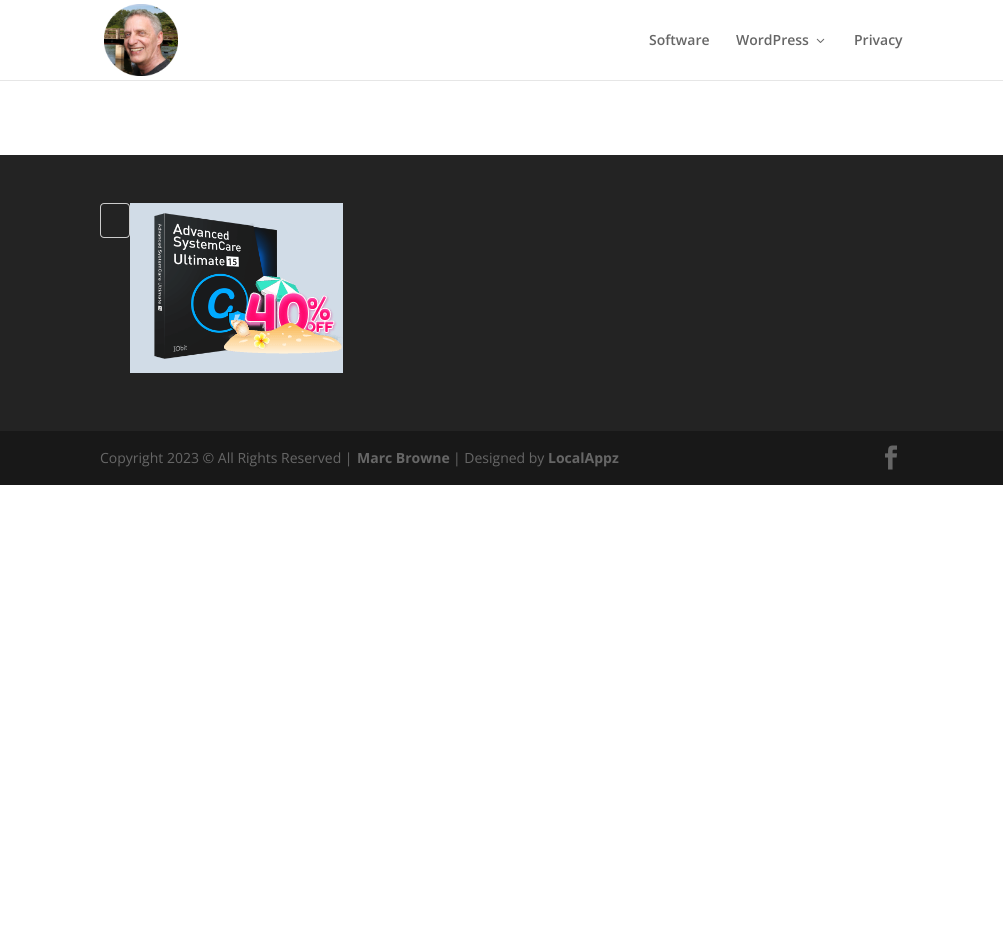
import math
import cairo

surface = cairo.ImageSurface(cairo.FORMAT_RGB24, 1003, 950)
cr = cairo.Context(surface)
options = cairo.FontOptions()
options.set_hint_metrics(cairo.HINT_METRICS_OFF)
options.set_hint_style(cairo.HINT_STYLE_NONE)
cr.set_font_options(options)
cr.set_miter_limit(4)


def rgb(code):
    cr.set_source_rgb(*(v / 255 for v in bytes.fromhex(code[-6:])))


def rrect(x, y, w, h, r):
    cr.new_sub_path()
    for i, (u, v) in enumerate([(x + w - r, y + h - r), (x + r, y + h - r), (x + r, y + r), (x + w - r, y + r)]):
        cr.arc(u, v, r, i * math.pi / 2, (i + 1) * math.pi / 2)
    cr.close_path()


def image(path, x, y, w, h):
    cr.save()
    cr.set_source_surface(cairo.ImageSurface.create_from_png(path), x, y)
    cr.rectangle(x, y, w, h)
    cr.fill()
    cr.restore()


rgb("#ffffff")
cr.paint()
rgb("#e6e6e6")
cr.rectangle(0, 80, 1003, 1)
cr.fill()
image("img/1.png", 104, 4, 74, 72)
image("img/2.png", 816, 38, 9, 5)
rgb("#232323")
cr.rectangle(0, 155, 1003, 276)
cr.fill()
rrect(100.5, 203.5, 29, 34, 3.5)
rgb("#cccccc")
cr.set_line_width(1)
cr.stroke()
image("img/3.png", 130, 203, 213, 170)
rgb("#181818")
cr.rectangle(0, 431, 1003, 54)
cr.fill()
image("img/4.png", 885, 445, 12, 25)
cr.select_font_face("Open Sans SemiBold")
cr.set_font_size(14)
rgb("#666666")
for x, y, s in [
    (649, 45, "Software"),
    (736, 45, "WordPress"),
    (854, 45, "Privacy"),
]:
    cr.move_to(x, y)
    cr.show_text(s)
cr.select_font_face("Open Sans")
cr.move_to(100, 463)
cr.show_text("Copyright 2023 © All Rights Reserved |")
cr.select_font_face("Open Sans", cairo.FONT_SLANT_NORMAL, cairo.FONT_WEIGHT_BOLD)
cr.move_to(357, 463)
cr.show_text("Marc Browne")
cr.select_font_face("Open Sans")
cr.move_to(453, 463)
cr.show_text("| Designed by")
cr.select_font_face("Open Sans", cairo.FONT_SLANT_NORMAL, cairo.FONT_WEIGHT_BOLD)
cr.move_to(548, 463)
cr.show_text("LocalAppz")
surface.write_to_png("page.png")
